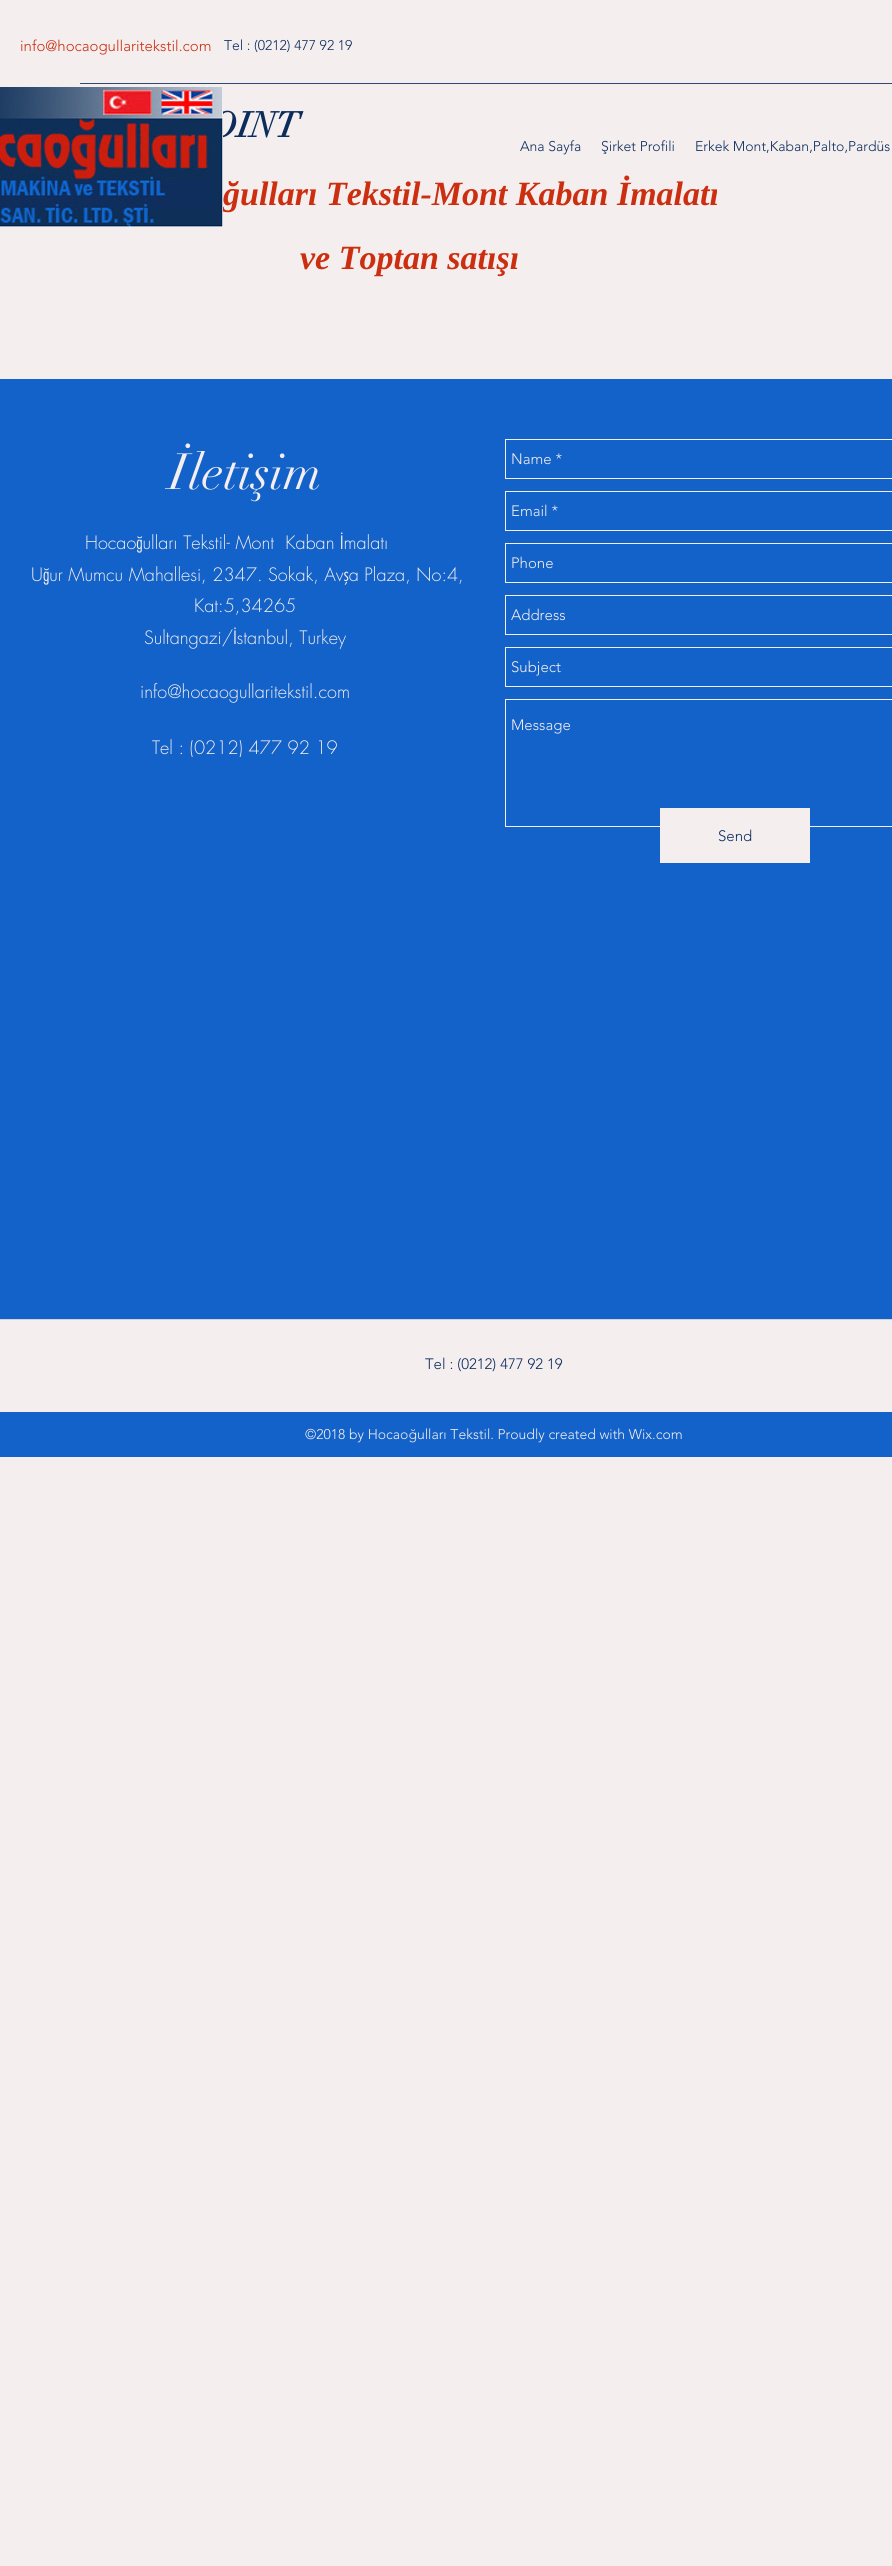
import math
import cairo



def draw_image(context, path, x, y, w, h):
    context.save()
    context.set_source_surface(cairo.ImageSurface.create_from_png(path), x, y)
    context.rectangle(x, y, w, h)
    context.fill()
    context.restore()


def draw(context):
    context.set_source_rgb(244 / 255, 238 / 255, 238 / 255)
    context.paint()
    context.set_source_rgb(47 / 255, 73 / 255, 114 / 255)
    context.rectangle(80, 83, 812, 1)
    context.fill()
    context.set_source_rgb(19 / 255, 98 / 255, 201 / 255)
    context.rectangle(0, 379, 892, 940)
    context.fill()
    context.rectangle(505.5, 439.5, 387, 39)
    context.set_source_rgb(244 / 255, 238 / 255, 238 / 255)
    context.set_line_width(1)
    context.stroke()
    context.rectangle(505.5, 491.5, 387, 39)
    context.stroke()
    context.rectangle(505.5, 543.5, 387, 39)
    context.stroke()
    context.rectangle(505.5, 595.5, 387, 39)
    context.stroke()
    context.rectangle(505.5, 647.5, 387, 39)
    context.stroke()
    context.rectangle(505.5, 699.5, 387, 127)
    context.stroke()
    context.rectangle(660, 808, 150, 55)
    context.fill()
    context.set_source_rgb(209 / 255, 209 / 255, 216 / 255)
    context.rectangle(0, 1319, 892, 1)
    context.fill()
    context.set_source_rgb(19 / 255, 98 / 255, 201 / 255)
    context.rectangle(0, 1412, 892, 45)
    context.fill()
    context.select_font_face("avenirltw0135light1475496 Light")
    context.set_font_size(15)
    context.set_source_rgb(203 / 255, 47 / 255, 16 / 255)
    context.move_to(20, 51)
    context.show_text("info@hocaogullaritekstil.com")
    context.set_font_size(14)
    context.set_source_rgb(12 / 255, 44 / 255, 92 / 255)
    context.move_to(224, 50)
    context.show_text("Tel : (0212) 477 92 19")
    context.select_font_face("didot", cairo.FontSlant.NORMAL, cairo.FontWeight.BOLD)
    context.set_font_size(35)
    context.move_to(210, 137)
    context.show_text("OINT")
    context.select_font_face("avenirltw0135light1475496 Light")
    context.set_font_size(14)
    context.move_to(520, 151)
    context.show_text("Ana Sayfa")
    context.move_to(601, 151)
    context.show_text("Şirket Profili")
    context.move_to(695, 151)
    context.show_text("Erkek Mont,Kaban,Palto,Pardüs")
    context.select_font_face("Liberation Serif", cairo.FontSlant.ITALIC, cairo.FontWeight.BOLD)
    context.set_font_size(34)
    context.set_source_rgb(203 / 255, 47 / 255, 16 / 255)
    context.move_to(223, 205)
    context.show_text("ğulları Tekstil-Mont Kaban İmalatı")
    draw_image(context, "images/1.png", 0, 87, 223, 140)
    context.move_to(300, 269)
    context.show_text("ve Toptan satışı")
    context.select_font_face("didot")
    context.set_font_size(50)
    context.set_source_rgb(244 / 255, 238 / 255, 238 / 255)
    context.move_to(169, 489)
    context.show_text("İletişim")
    context.select_font_face("futura Light")
    context.set_font_size(18)
    context.move_to(85, 549)
    context.show_text("Hocaoğulları Tekstil- Mont  Kaban İmalatı")
    context.move_to(31, 581)
    context.show_text("Uğur Mumcu Mahallesi, 2347. Sokak, Avşa Plaza, No:4,")
    context.move_to(194, 612)
    context.show_text("Kat:5,34265")
    context.move_to(144, 644)
    context.show_text("Sultangazi/İstanbul, Turkey")
    context.move_to(140, 698)
    context.show_text("info@hocaogullaritekstil.com")
    context.move_to(152, 754)
    context.show_text("Tel : (0212) 477 92 19")
    context.select_font_face("avenirltw0135light1475496 Light")
    context.set_font_size(15)
    context.move_to(511, 464)
    context.show_text("Name *")
    context.move_to(511, 516)
    context.show_text("Email *")
    context.move_to(511, 568)
    context.show_text("Phone")
    context.move_to(511, 620)
    context.show_text("Address")
    context.move_to(511, 672)
    context.show_text("Subject")
    context.move_to(511, 730)
    context.show_text("Message")
    context.set_source_rgb(12 / 255, 44 / 255, 92 / 255)
    context.move_to(718, 841)
    context.show_text("Send")
    context.move_to(425, 1369)
    context.show_text("Tel : (0212) 477 92 19")
    context.set_font_size(14)
    context.set_source_rgb(244 / 255, 238 / 255, 238 / 255)
    context.move_to(305, 1439)
    context.show_text("©2018 by Hocaoğulları Tekstil. Proudly created with Wix.com")


surface = cairo.ImageSurface(cairo.Format.RGB24, 892, 2566)
context = cairo.Context(surface)
options = cairo.FontOptions()
options.set_hint_metrics(cairo.HintMetrics.OFF)
options.set_hint_style(cairo.HintStyle.NONE)
context.set_font_options(options)
context.set_miter_limit(4)
draw(context)
surface.write_to_png("out.png")
